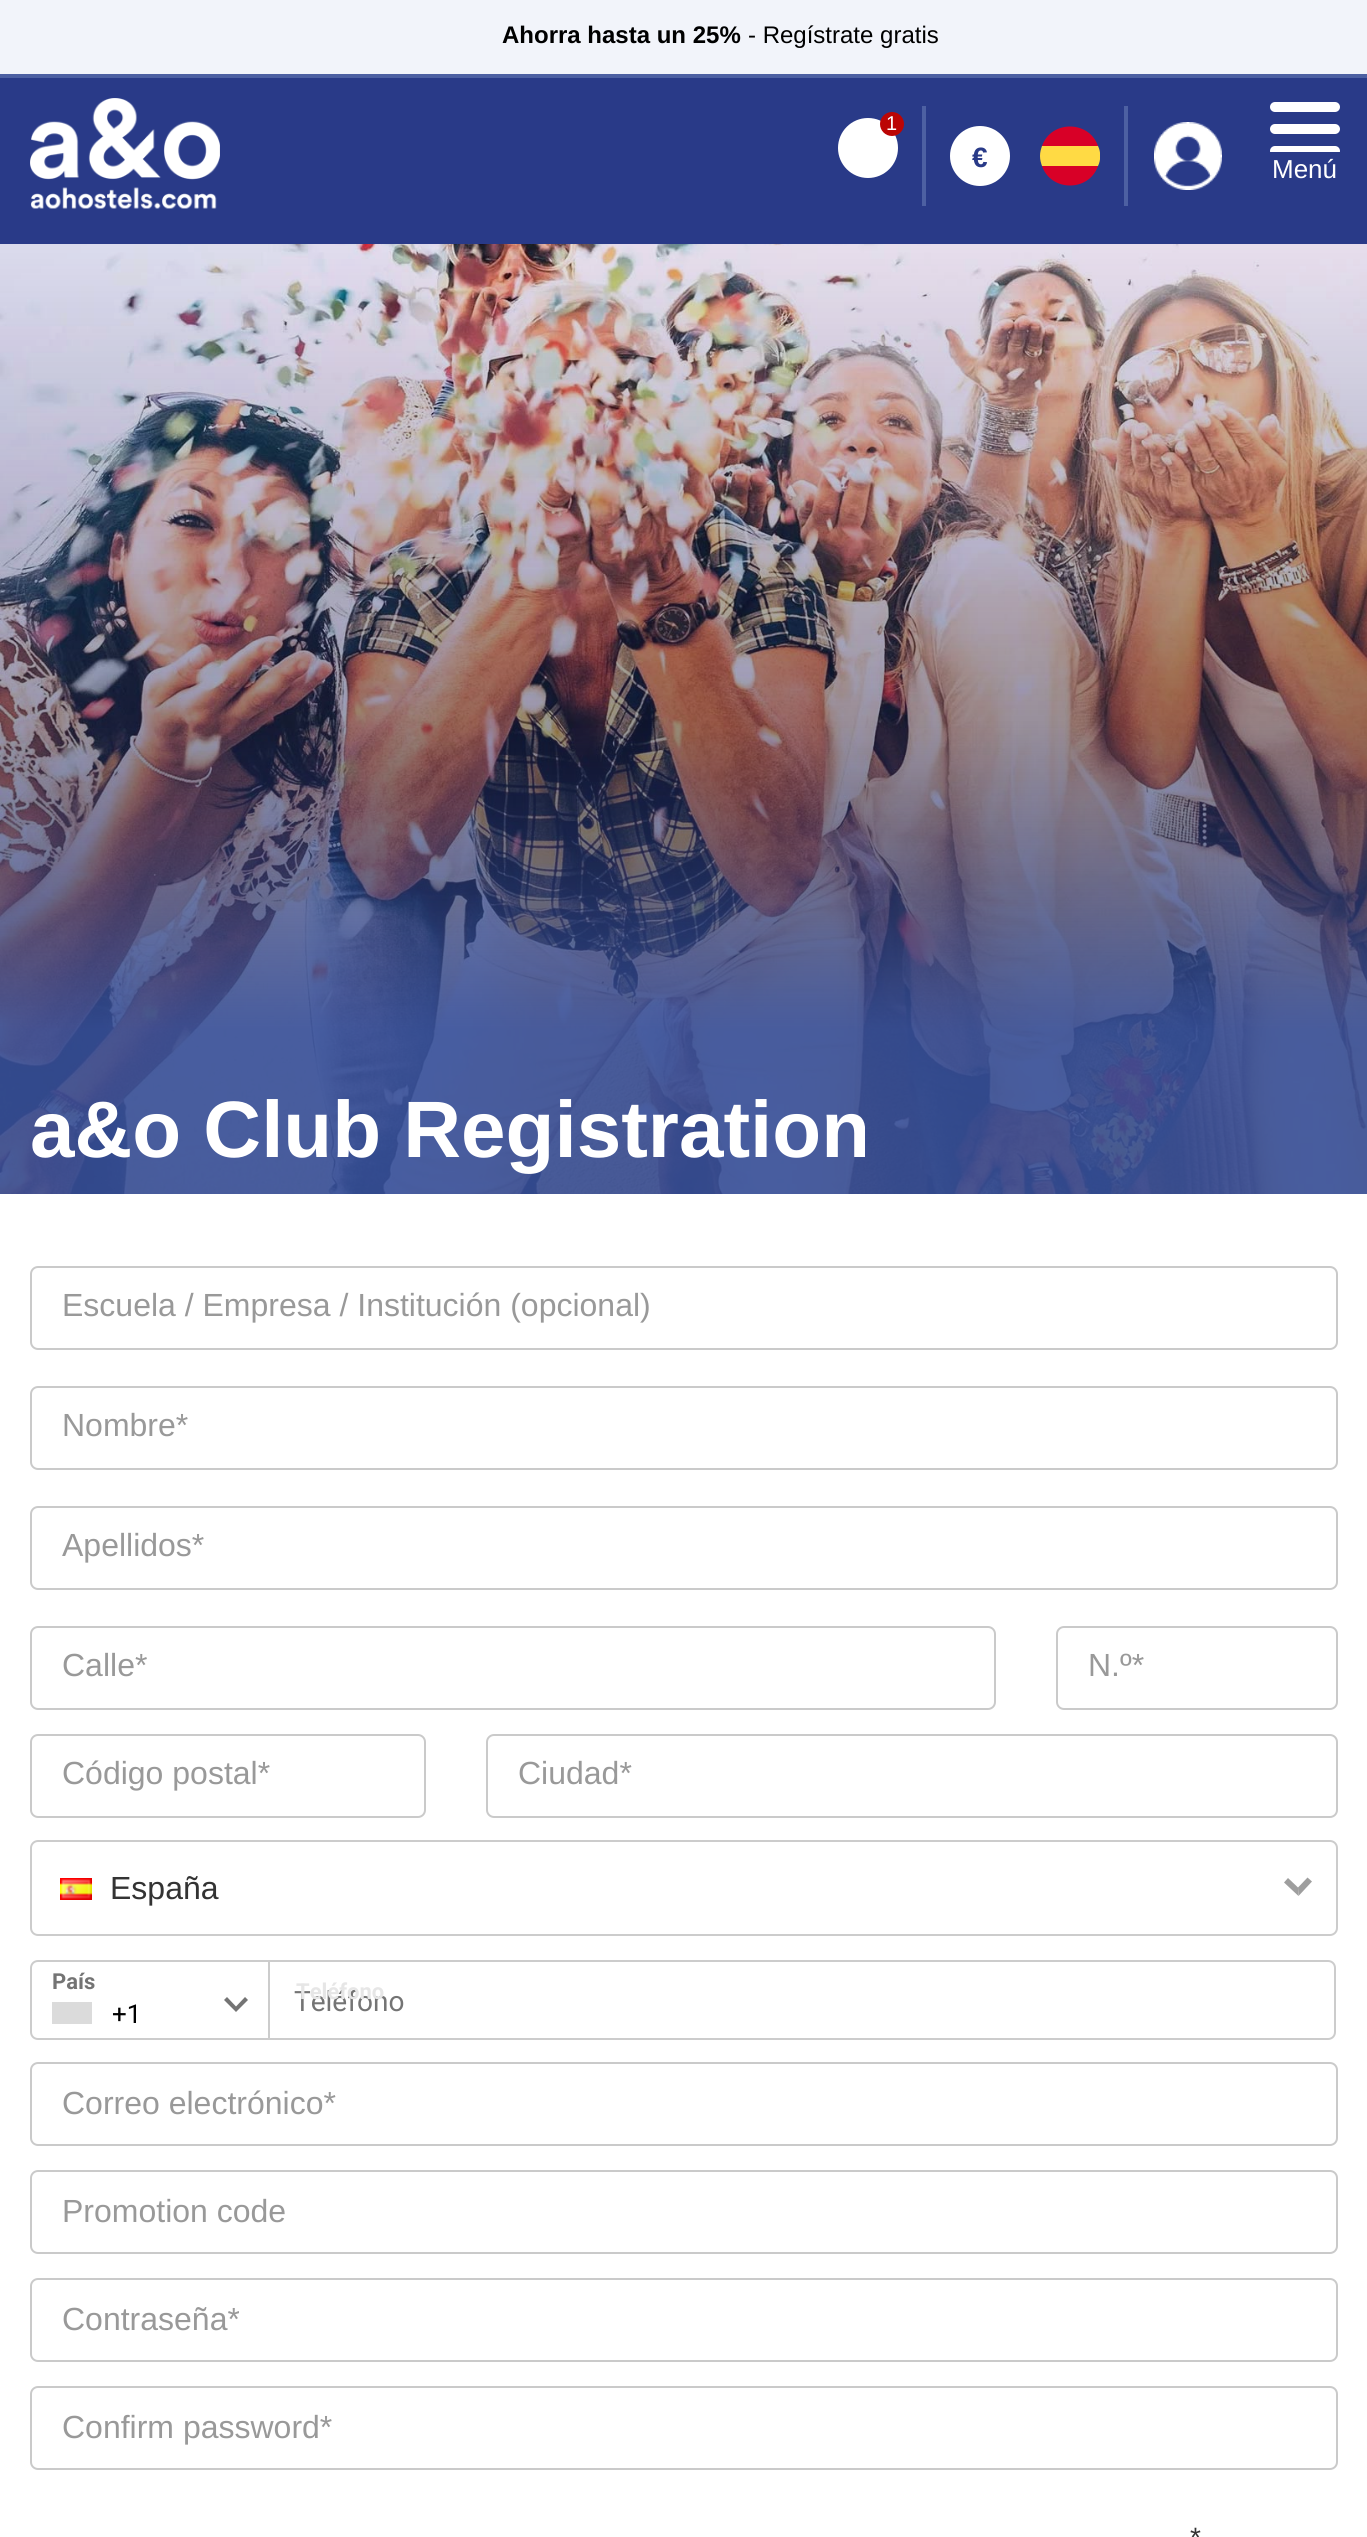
import math
import cairo



def rounded_rect(context, x, y, w, h, r):
    context.new_sub_path()
    for i, (u, v) in enumerate([(x + w - r, y + h - r), (x + r, y + h - r), (x + r, y + r), (x + w - r, y + r)]):
        context.arc(u, v, r, i * math.pi / 2, (i + 1) * math.pi / 2)
    context.close_path()


def draw_image(context, path, x, y, w, h):
    context.save()
    context.set_source_surface(cairo.ImageSurface.create_from_png(path), x, y)
    context.rectangle(x, y, w, h)
    context.fill()
    context.restore()


def draw(context):
    context.set_source_rgb(1, 1, 1)
    context.paint()
    context.set_source_rgb(41 / 255, 58 / 255, 136 / 255)
    context.rectangle(0, 78, 1367, 166)
    context.fill()
    context.set_source_rgb(77 / 255, 96 / 255, 162 / 255)
    context.rectangle(0, 74, 1367, 4)
    context.fill()
    context.set_source_rgb(242 / 255, 244 / 255, 250 / 255)
    context.rectangle(0, 0, 1367, 74)
    context.fill()
    draw_image(context, "images/1.png", 30, 98, 190, 111)
    context.set_source_rgb(77 / 255, 96 / 255, 162 / 255)
    context.rectangle(1124, 106, 4, 100)
    context.fill()
    context.rectangle(922, 106, 4, 100)
    context.fill()
    context.set_source_rgb(1, 1, 1)
    context.arc(980, 156, 30, 0, 2 * math.pi)
    context.fill()
    context.save()
    context.rectangle(1040, 126, 60, 60)
    context.clip()
    context.set_source_rgb(1, 218 / 255, 68 / 255)
    context.new_path()
    context.move_to(1040, 156)
    context.curve_to(1040, 152, 1041, 149, 1042, 146)
    context.line_to(1070, 143)
    context.line_to(1098, 146)
    context.curve_to(1101, 152, 1101, 160, 1098, 166)
    context.line_to(1070, 169)
    context.line_to(1042, 166)
    context.curve_to(1041, 163, 1040, 160, 1040, 156)
    context.close_path()
    context.fill()
    context.restore()
    context.set_source_rgb(216 / 255, 0, 39 / 255)
    context.new_path()
    context.move_to(1098, 146)
    context.curve_to(1089, 120, 1051, 120, 1042, 146)
    context.close_path()
    context.move_to(1042, 166)
    context.curve_to(1051, 192, 1089, 192, 1098, 166)
    context.close_path()
    context.fill()
    draw_image(context, "images/2.png", 1154, 122, 68, 68)
    context.set_source_rgb(1, 1, 1)
    context.arc(868, 148, 30, 0, 2 * math.pi)
    context.fill()
    context.set_source_rgb(187 / 255, 5 / 255, 5 / 255)
    context.arc(892, 124, 12, 0, 2 * math.pi)
    context.fill()
    context.set_source_rgb(1, 1, 1)
    rounded_rect(context, 1270, 102, 70, 10, 5)
    context.fill()
    rounded_rect(context, 1270, 124, 70, 10, 5)
    context.fill()
    rounded_rect(context, 1270, 146, 70, 10, 5)
    context.fill()
    context.set_source_rgb(41 / 255, 58 / 255, 136 / 255)
    context.rectangle(1270, 152, 70, 4)
    context.fill()
    draw_image(context, "images/3.png", 0, 244, 1367, 950)
    rounded_rect(context, 31, 1267, 1306, 82, 7)
    context.set_source_rgb(202 / 255, 202 / 255, 202 / 255)
    context.stroke()
    rounded_rect(context, 31, 1387, 1306, 82, 7)
    context.stroke()
    rounded_rect(context, 31, 1507, 1306, 82, 7)
    context.stroke()
    rounded_rect(context, 31, 1627, 964, 82, 7)
    context.stroke()
    rounded_rect(context, 1057, 1627, 280, 82, 7)
    context.stroke()
    rounded_rect(context, 31, 1735, 394, 82, 7)
    context.stroke()
    rounded_rect(context, 487, 1735, 850, 82, 7)
    context.stroke()
    rounded_rect(context, 31, 1841, 1306, 94, 7)
    context.set_source_rgb(204 / 255, 204 / 255, 204 / 255)
    context.stroke()
    draw_image(context, "images/4.png", 60, 1878, 32, 22)
    context.set_source_rgb(158 / 255, 158 / 255, 158 / 255)
    context.new_path()
    context.move_to(1312, 1881.5)
    context.line_to(1298.5, 1896)
    context.line_to(1298, 1887.5)
    context.line_to(1307.5, 1877.5)
    context.close_path()
    context.fill()
    context.new_path()
    context.move_to(1298.5, 1896)
    context.line_to(1284, 1882.5)
    context.line_to(1288, 1878)
    context.line_to(1298, 1887.5)
    context.close_path()
    context.fill()
    context.new_path()
    context.move_to(38, 1961)
    context.line_to(269, 1961)
    context.line_to(269, 2039)
    context.line_to(38, 2039)
    context.curve_to(34, 2039, 31, 2036, 31, 2032)
    context.line_to(31, 1968)
    context.curve_to(31, 1964, 34, 1961, 38, 1961)
    context.close_path()
    context.set_source_rgb(204 / 255, 204 / 255, 204 / 255)
    context.stroke()
    context.set_source_rgb(219 / 255, 219 / 255, 219 / 255)
    context.rectangle(52, 2002, 40, 22)
    context.fill()
    context.set_source_rgb(116 / 255, 116 / 255, 116 / 255)
    context.new_path()
    context.move_to(227, 1997)
    context.line_to(236, 2006.5)
    context.line_to(245, 1997)
    context.line_to(248, 2000)
    context.line_to(236, 2012)
    context.line_to(224, 2000)
    context.close_path()
    context.fill()
    context.set_source_rgb(1, 1, 1)
    context.new_path()
    context.move_to(269, 1961)
    context.line_to(1328, 1961)
    context.curve_to(1332, 1961, 1335, 1964, 1335, 1968)
    context.line_to(1335, 2032)
    context.curve_to(1335, 2036, 1332, 2039, 1328, 2039)
    context.line_to(269, 2039)
    context.close_path()
    context.fill_preserve()
    context.set_source_rgb(204 / 255, 204 / 255, 204 / 255)
    context.stroke()
    rounded_rect(context, 31, 2063, 1306, 82, 7)
    context.set_source_rgb(202 / 255, 202 / 255, 202 / 255)
    context.stroke()
    rounded_rect(context, 31, 2171, 1306, 82, 7)
    context.stroke()
    rounded_rect(context, 31, 2279, 1306, 82, 7)
    context.stroke()
    rounded_rect(context, 31, 2387, 1306, 82, 7)
    context.stroke()
    context.select_font_face("Liberation Sans", cairo.FontSlant.NORMAL, cairo.FontWeight.BOLD)
    context.set_font_size(24)
    context.set_source_rgb(0, 0, 0)
    context.move_to(502, 43)
    context.show_text("Ahorra hasta un 25%")
    context.select_font_face("Liberation Sans")
    context.move_to(748, 43)
    context.show_text("- Regístrate gratis")
    context.select_font_face("Liberation Sans", cairo.FontSlant.NORMAL, cairo.FontWeight.BOLD)
    context.set_font_size(28)
    context.set_source_rgb(41 / 255, 58 / 255, 136 / 255)
    context.move_to(972, 167)
    context.show_text("€")
    context.select_font_face("Liberation Sans")
    context.set_font_size(20)
    context.set_source_rgb(1, 1, 1)
    context.move_to(886, 130)
    context.show_text("1")
    context.set_font_size(26)
    context.move_to(1272, 178)
    context.show_text("Menú")
    context.select_font_face("Liberation Sans", cairo.FontSlant.NORMAL, cairo.FontWeight.BOLD)
    context.set_font_size(80)
    context.move_to(30, 1157)
    context.show_text("a&o Club Registration")
    context.select_font_face("Liberation Sans")
    context.set_font_size(32)
    context.set_source_rgb(153 / 255, 153 / 255, 153 / 255)
    context.move_to(62, 1316)
    context.show_text("Escuela / Empresa / Institución (opcional)")
    context.move_to(62, 1436)
    context.show_text("Nombre*")
    context.move_to(62, 1556)
    context.show_text("Apellidos*")
    context.move_to(62, 1676)
    context.show_text("Calle*")
    context.move_to(1088, 1676)
    context.show_text("N.º*")
    context.move_to(62, 1784)
    context.show_text("Código postal*")
    context.move_to(518, 1784)
    context.show_text("Ciudad*")
    context.set_source_rgb(51 / 255, 51 / 255, 51 / 255)
    context.move_to(110, 1899)
    context.show_text("España")
    context.select_font_face("Roboto", cairo.FontSlant.NORMAL, cairo.FontWeight.BOLD)
    context.set_font_size(22)
    context.set_source_rgb(116 / 255, 116 / 255, 116 / 255)
    context.move_to(52, 1989)
    context.show_text("País")
    context.select_font_face("Roboto")
    context.set_font_size(26)
    context.set_source_rgb(0, 0, 0)
    context.move_to(112, 2023)
    context.show_text("+1")
    context.set_font_size(28)
    context.set_source_rgb(116 / 255, 116 / 255, 116 / 255)
    context.move_to(294, 2011)
    context.show_text("Teléfono")
    context.select_font_face("Roboto", cairo.FontSlant.NORMAL, cairo.FontWeight.BOLD)
    context.set_font_size(22)
    context.set_source_rgb(230 / 255, 230 / 255, 230 / 255)
    context.move_to(296, 1999)
    context.show_text("Teléfono")
    context.select_font_face("Liberation Sans")
    context.set_font_size(32)
    context.set_source_rgb(153 / 255, 153 / 255, 153 / 255)
    context.move_to(62, 2114)
    context.show_text("Correo electrónico*")
    context.move_to(62, 2222)
    context.show_text("Promotion code")
    context.move_to(62, 2330)
    context.show_text("Contraseña*")
    context.move_to(62, 2438)
    context.show_text("Confirm password*")
    context.set_font_size(28)
    context.set_source_rgb(51 / 255, 51 / 255, 51 / 255)
    context.move_to(1190, 2547)
    context.show_text("*")


surface = cairo.ImageSurface(cairo.Format.RGB24, 1367, 2537)
context = cairo.Context(surface)
options = cairo.FontOptions()
options.set_hint_metrics(cairo.HintMetrics.OFF)
options.set_hint_style(cairo.HintStyle.NONE)
context.set_font_options(options)
context.set_miter_limit(4)
draw(context)
surface.write_to_png("out.png")
